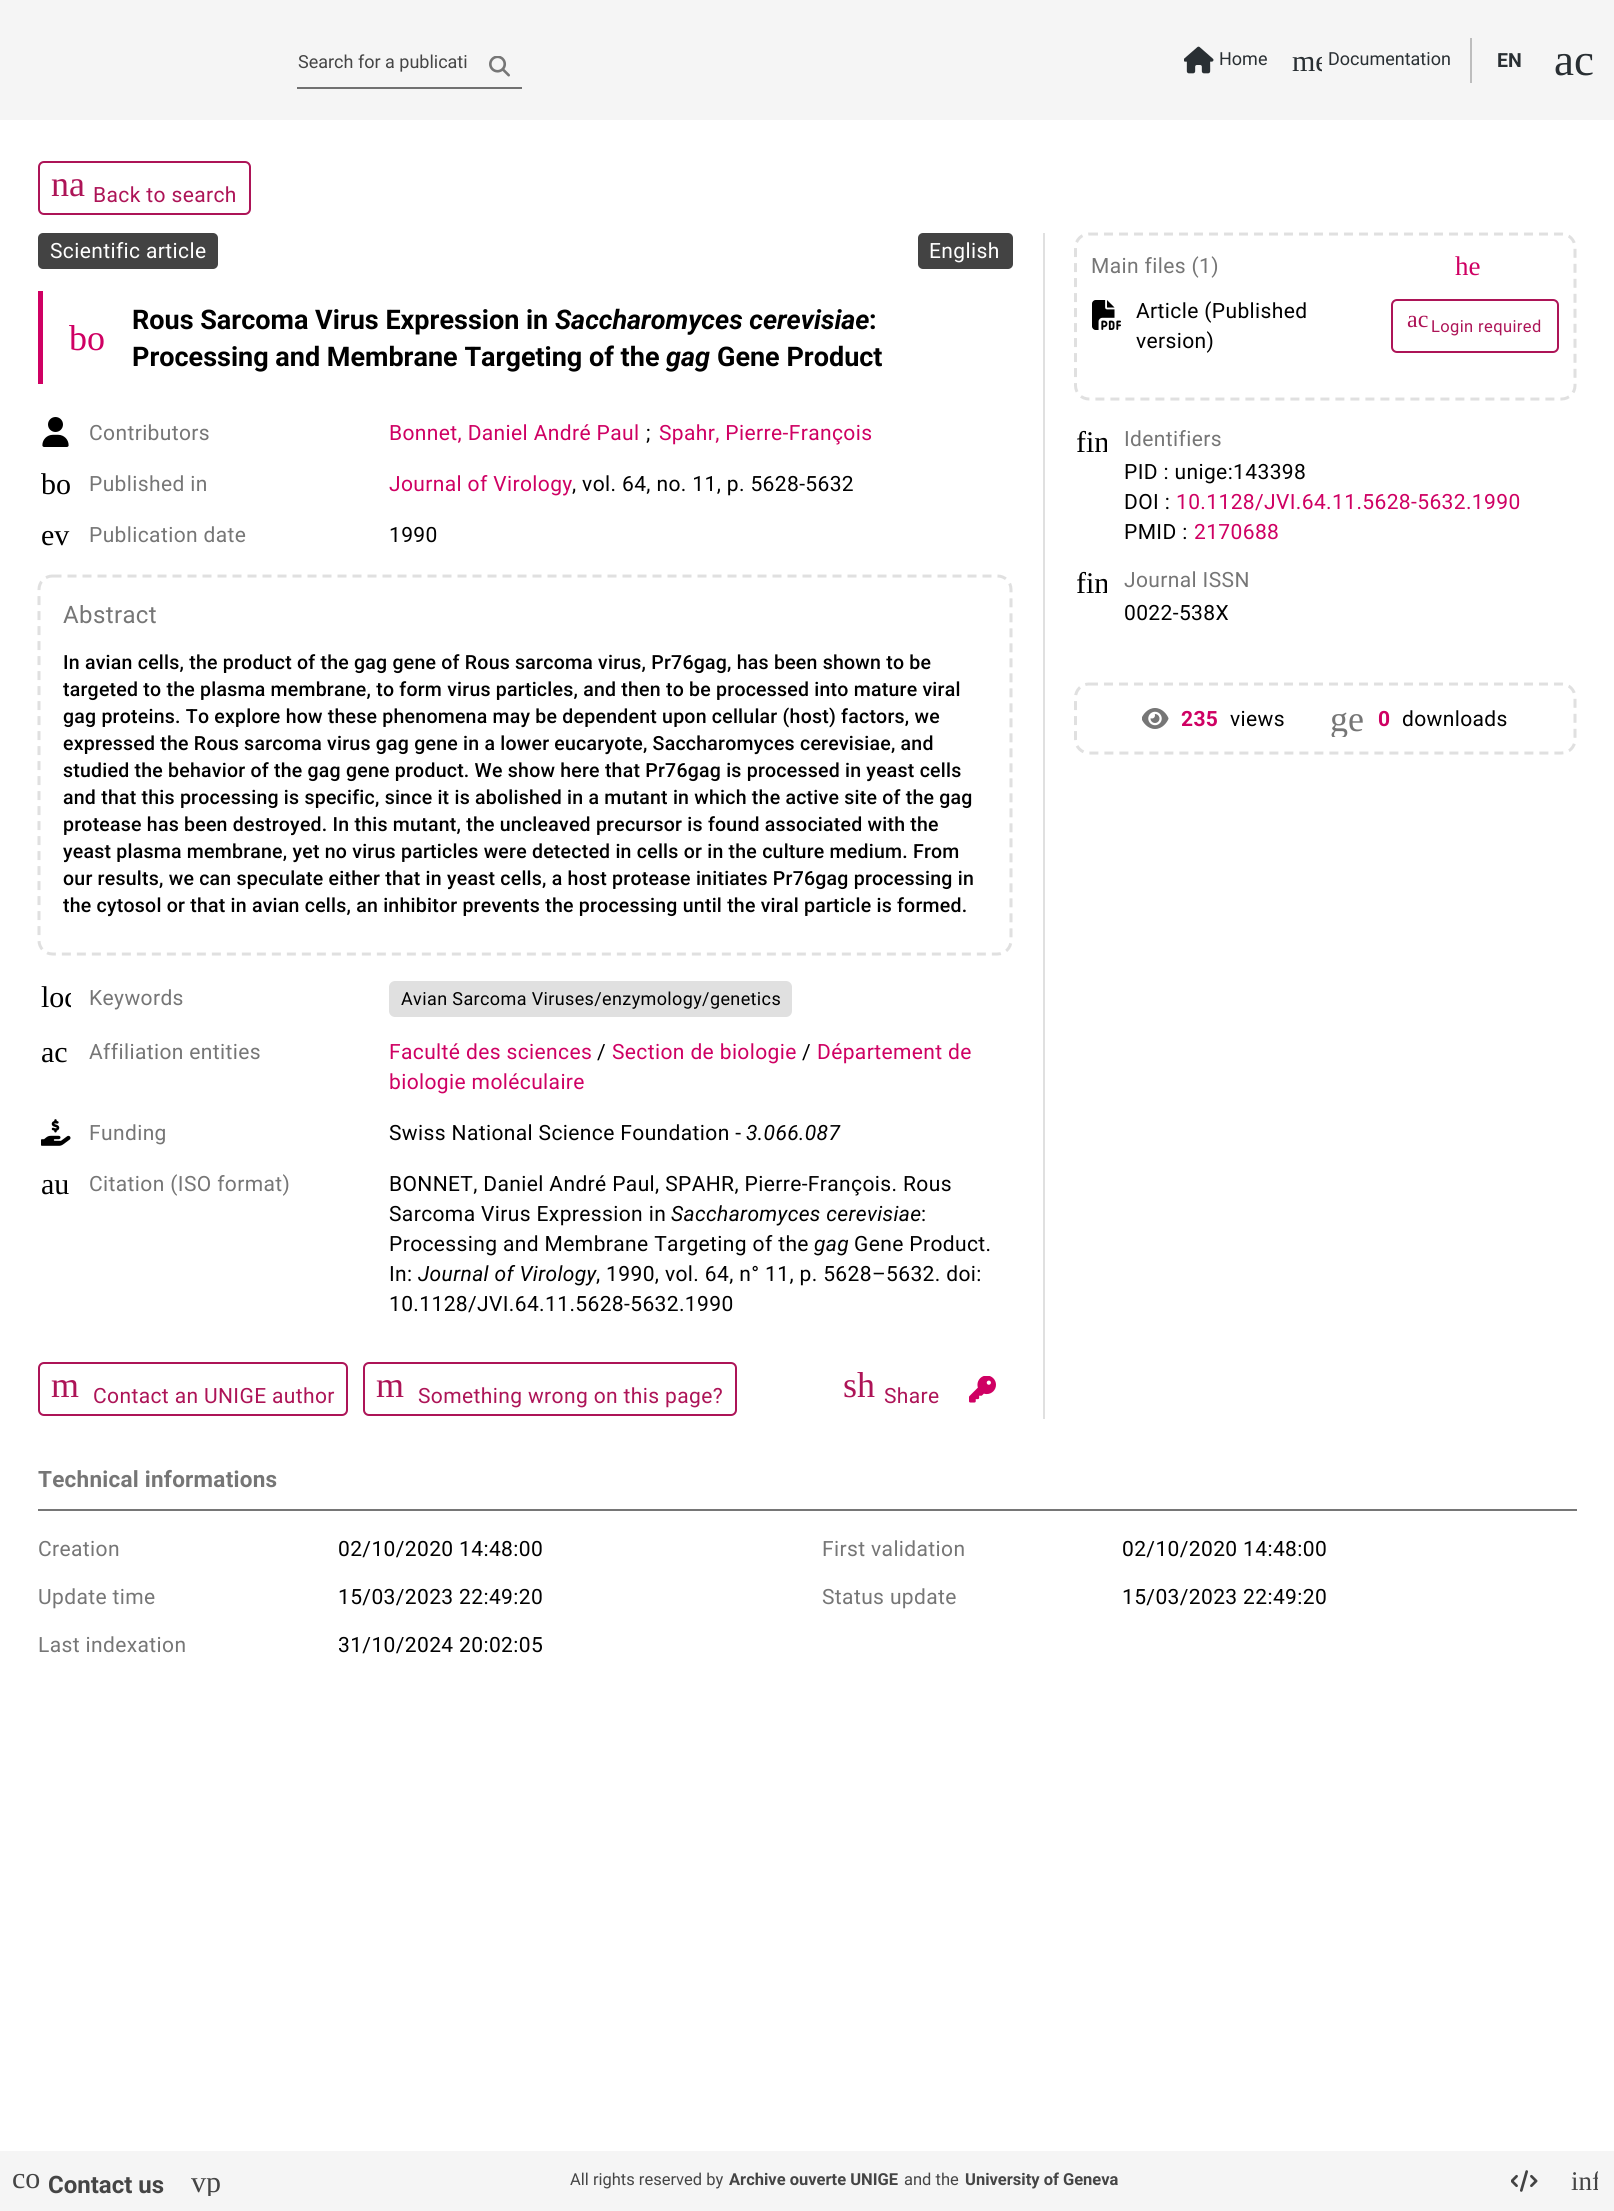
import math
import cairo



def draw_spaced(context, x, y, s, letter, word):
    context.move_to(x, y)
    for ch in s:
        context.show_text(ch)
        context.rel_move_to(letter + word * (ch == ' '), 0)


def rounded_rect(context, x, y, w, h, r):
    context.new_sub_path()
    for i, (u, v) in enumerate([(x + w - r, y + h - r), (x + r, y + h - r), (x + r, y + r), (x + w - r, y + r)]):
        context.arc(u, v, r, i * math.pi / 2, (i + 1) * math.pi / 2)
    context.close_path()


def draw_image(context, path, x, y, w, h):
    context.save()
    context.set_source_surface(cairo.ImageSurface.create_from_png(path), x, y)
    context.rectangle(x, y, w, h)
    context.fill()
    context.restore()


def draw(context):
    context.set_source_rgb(1, 1, 1)
    context.paint()
    context.set_source_rgb(245 / 255, 245 / 255, 245 / 255)
    context.rectangle(0, 0, 1614, 120)
    context.fill()
    draw_image(context, "images/1.png", 489, 56, 21, 21)
    context.set_source_rgb(113 / 255, 113 / 255, 113 / 255)
    context.rectangle(297, 87, 225, 2)
    context.fill()
    draw_image(context, "images/2.png", 1184, 46, 30, 28)
    context.set_source_rgb(189 / 255, 189 / 255, 189 / 255)
    context.rectangle(1470, 38, 2, 45)
    context.fill()
    rounded_rect(context, 39, 162, 211, 52, 5)
    context.set_source_rgb(173 / 255, 20 / 255, 87 / 255)
    context.stroke()
    context.set_source_rgb(224 / 255, 224 / 255, 224 / 255)
    context.rectangle(1043, 233, 2, 1186)
    context.fill()
    context.set_source_rgb(67 / 255, 67 / 255, 67 / 255)
    rounded_rect(context, 38, 233, 180, 36, 5)
    context.fill()
    rounded_rect(context, 918, 233, 95, 36, 5)
    context.fill()
    context.set_source_rgb(207 / 255, 0, 99 / 255)
    context.rectangle(38, 291, 5, 93)
    context.fill()
    draw_image(context, "images/3.png", 42, 417, 27, 30)
    context.new_path()
    context.move_to(52.5, 576)
    context.line_to(997.5, 576)
    context.curve_to(1005, 576, 1011, 582, 1011, 589.5)
    context.line_to(1011, 940.5)
    context.curve_to(1011, 948, 1005, 954, 997.5, 954)
    context.line_to(52.5, 954)
    context.curve_to(45, 954, 39, 948, 39, 940.5)
    context.line_to(39, 589.5)
    context.curve_to(39, 582, 45, 576, 52.5, 576)
    context.close_path()
    context.set_source_rgb(224 / 255, 224 / 255, 224 / 255)
    context.set_line_width(3)
    context.set_dash([9, 6])
    context.stroke()
    rounded_rect(context, 389, 981, 403, 36, 6)
    context.fill()
    draw_image(context, "images/4.png", 41, 1119, 30, 27)
    rounded_rect(context, 39, 1363, 308, 52, 5)
    context.set_source_rgb(173 / 255, 20 / 255, 87 / 255)
    context.set_line_width(2)
    context.set_dash([])
    context.stroke()
    rounded_rect(context, 364, 1363, 372, 52, 5)
    context.stroke()
    draw_image(context, "images/5.png", 969, 1376, 27, 27)
    context.new_path()
    context.move_to(1089, 234)
    context.line_to(1561.5, 234)
    context.curve_to(1569, 234, 1575, 240, 1575, 247.5)
    context.line_to(1575, 385.5)
    context.curve_to(1575, 393, 1569, 399, 1561.5, 399)
    context.line_to(1089, 399)
    context.curve_to(1081.5, 399, 1075.5, 393, 1075.5, 385.5)
    context.line_to(1075.5, 247.5)
    context.curve_to(1075.5, 240, 1081.5, 234, 1089, 234)
    context.close_path()
    context.set_source_rgb(224 / 255, 224 / 255, 224 / 255)
    context.set_line_width(3)
    context.set_dash([9, 6])
    context.stroke()
    draw_image(context, "images/6.png", 1092, 300, 29, 30)
    rounded_rect(context, 1392, 300, 166, 52, 5)
    context.set_source_rgb(173 / 255, 20 / 255, 87 / 255)
    context.set_line_width(2)
    context.set_dash([])
    context.stroke()
    context.new_path()
    context.move_to(1089, 684)
    context.line_to(1561.5, 684)
    context.curve_to(1569, 684, 1575, 690, 1575, 697.5)
    context.line_to(1575, 739.5)
    context.curve_to(1575, 747, 1569, 753, 1561.5, 753)
    context.line_to(1089, 753)
    context.curve_to(1081.5, 753, 1075.5, 747, 1075.5, 739.5)
    context.line_to(1075.5, 697.5)
    context.curve_to(1075.5, 690, 1081.5, 684, 1089, 684)
    context.close_path()
    context.set_source_rgb(224 / 255, 224 / 255, 224 / 255)
    context.set_line_width(3)
    context.set_dash([9, 6])
    context.stroke()
    draw_image(context, "images/7.png", 1142, 708, 27, 21)
    context.set_source_rgb(118 / 255, 118 / 255, 118 / 255)
    context.rectangle(38, 1509, 1539, 2)
    context.fill()
    context.set_source_rgb(245 / 255, 245 / 255, 245 / 255)
    context.rectangle(0, 2151, 1614, 60)
    context.fill()
    draw_image(context, "images/8.png", 1511, 2170, 27, 22)
    context.select_font_face("Roboto")
    context.set_font_size(18)
    context.set_source_rgb(69 / 255, 69 / 255, 69 / 255)
    context.move_to(298, 68)
    context.show_text("Search for a publicati")
    context.set_source_rgb(41 / 255, 47 / 255, 51 / 255)
    context.move_to(1219, 65)
    context.show_text("Home")
    context.save()
    context.rectangle(1292, 45, 30, 30)
    context.clip()
    context.select_font_face("Liberation Serif")
    context.set_font_size(30)
    context.move_to(1292, 71)
    context.show_text("me")
    context.restore()
    context.move_to(1328, 65)
    context.show_text("Documentation")
    context.select_font_face("Roboto", cairo.FontSlant.NORMAL, cairo.FontWeight.BOLD)
    context.set_font_size(19.5)
    context.move_to(1497, 67)
    context.show_text("EN")
    context.select_font_face("Liberation Serif")
    context.set_font_size(45)
    context.move_to(1554, 75)
    context.show_text("ac")
    context.set_font_size(36)
    context.set_source_rgb(173 / 255, 20 / 255, 87 / 255)
    context.move_to(51, 196)
    context.show_text("na")
    context.select_font_face("Roboto")
    context.set_font_size(21)
    draw_spaced(context, 93, 202, "Back to search", 0.38, 0)
    context.set_source_rgb(1, 1, 1)
    draw_spaced(context, 50, 258, "Scientific article", 0.38, 0)
    draw_spaced(context, 929, 258, "English", 0.38, 0)
    context.select_font_face("Liberation Serif")
    context.set_font_size(36)
    context.set_source_rgb(207 / 255, 0, 99 / 255)
    context.move_to(69, 350)
    context.show_text("bo")
    context.select_font_face("Roboto", cairo.FontSlant.NORMAL, cairo.FontWeight.BOLD)
    context.set_font_size(27)
    context.set_source_rgb(0, 0, 0)
    context.move_to(132, 329)
    context.show_text("Rous Sarcoma Virus Expression in")
    context.select_font_face("Roboto", cairo.FontSlant.ITALIC, cairo.FontWeight.BOLD)
    context.move_to(555, 329)
    context.show_text("Saccharomyces cerevisiae")
    context.select_font_face("Roboto", cairo.FontSlant.NORMAL, cairo.FontWeight.BOLD)
    context.move_to(869, 329)
    context.show_text(":")
    context.move_to(132, 366)
    context.show_text("Processing and Membrane Targeting of the")
    context.select_font_face("Roboto", cairo.FontSlant.ITALIC, cairo.FontWeight.BOLD)
    context.move_to(666, 366)
    context.show_text("gag")
    context.select_font_face("Roboto", cairo.FontSlant.NORMAL, cairo.FontWeight.BOLD)
    context.move_to(717, 366)
    context.show_text("Gene Product")
    context.select_font_face("Roboto")
    context.set_font_size(21)
    context.set_source_rgb(118 / 255, 118 / 255, 118 / 255)
    draw_spaced(context, 89, 440, "Contributors", 0.38, 0)
    context.set_source_rgb(207 / 255, 0, 99 / 255)
    draw_spaced(context, 389, 440, "Bonnet, Daniel André Paul", 0.38, 0)
    context.set_source_rgb(0, 0, 0)
    draw_spaced(context, 646, 440, ";", 0.38, 0)
    context.set_source_rgb(207 / 255, 0, 99 / 255)
    draw_spaced(context, 659, 440, "Spahr, Pierre-François", 0.38, 0)
    context.select_font_face("Liberation Serif")
    context.set_font_size(30)
    context.set_source_rgb(0, 0, 0)
    context.move_to(41, 494)
    context.show_text("bo")
    context.select_font_face("Roboto")
    context.set_font_size(21)
    context.set_source_rgb(118 / 255, 118 / 255, 118 / 255)
    draw_spaced(context, 89, 491, "Published in", 0.38, 0)
    context.set_source_rgb(207 / 255, 0, 99 / 255)
    draw_spaced(context, 389, 491, "Journal of Virology", 0.38, 0)
    context.set_source_rgb(0, 0, 0)
    draw_spaced(context, 572, 491, ", vol. 64, no. 11, p. 5628-5632", 0.38, 0)
    context.select_font_face("Liberation Serif")
    context.set_font_size(30)
    context.move_to(41, 545)
    context.show_text("ev")
    context.select_font_face("Roboto")
    context.set_font_size(21)
    context.set_source_rgb(118 / 255, 118 / 255, 118 / 255)
    draw_spaced(context, 89, 542, "Publication date", 0.38, 0)
    context.set_source_rgb(0, 0, 0)
    draw_spaced(context, 389, 542, "1990", 0.38, 0)
    context.set_font_size(24)
    context.set_source_rgb(118 / 255, 118 / 255, 118 / 255)
    draw_spaced(context, 63, 623, "Abstract", 0.38, 0)
    context.select_font_face("Roboto Medium")
    context.set_font_size(19.5)
    context.set_source_rgb(0, 0, 0)
    draw_spaced(context, 63, 669, "In avian cells, the product of the gag gene of Rous sarcoma virus, Pr76gag, has been shown to be", 0.24, 0)
    draw_spaced(context, 63, 696, "targeted to the plasma membrane, to form virus particles, and then to be processed into mature viral", 0.24, 0)
    draw_spaced(context, 63, 723, "gag proteins. To explore how these phenomena may be dependent upon cellular (host) factors, we", 0.24, 0)
    draw_spaced(context, 63, 750, "expressed the Rous sarcoma virus gag gene in a lower eucaryote, Saccharomyces cerevisiae, and", 0.24, 0)
    draw_spaced(context, 63, 777, "studied the behavior of the gag gene product. We show here that Pr76gag is processed in yeast cells", 0.24, 0)
    draw_spaced(context, 63, 804, "and that this processing is specific, since it is abolished in a mutant in which the active site of the gag", 0.24, 0)
    draw_spaced(context, 63, 831, "protease has been destroyed. In this mutant, the uncleaved precursor is found associated with the", 0.24, 0)
    draw_spaced(context, 63, 858, "yeast plasma membrane, yet no virus particles were detected in cells or in the culture medium. From", 0.24, 0)
    draw_spaced(context, 63, 885, "our results, we can speculate either that in yeast cells, a host protease initiates Pr76gag processing in", 0.24, 0)
    draw_spaced(context, 63, 912, "the cytosol or that in avian cells, an inhibitor prevents the processing until the viral particle is formed.", 0.24, 0)
    context.save()
    context.rectangle(41, 981, 30, 30)
    context.clip()
    context.select_font_face("Liberation Serif")
    context.set_font_size(30)
    context.move_to(41, 1007)
    context.show_text("loc")
    context.restore()
    context.select_font_face("Roboto")
    context.set_font_size(21)
    context.set_source_rgb(118 / 255, 118 / 255, 118 / 255)
    draw_spaced(context, 89, 1005, "Keywords", 0.38, 0)
    context.set_font_size(18)
    context.set_source_rgb(0, 0, 0)
    draw_spaced(context, 401, 1005, "Avian Sarcoma Viruses/enzymology/genetics", 0.38, 0)
    context.select_font_face("Liberation Serif")
    context.set_font_size(30)
    context.move_to(41, 1062)
    context.show_text("ac")
    context.select_font_face("Roboto")
    context.set_font_size(21)
    context.set_source_rgb(118 / 255, 118 / 255, 118 / 255)
    draw_spaced(context, 89, 1059, "Affiliation entities", 0.38, 0)
    context.set_source_rgb(207 / 255, 0, 99 / 255)
    draw_spaced(context, 389, 1059, "Faculté des sciences", 0.38, 0)
    context.set_source_rgb(0, 0, 0)
    draw_spaced(context, 597, 1059, "/", 0.38, 0)
    context.set_source_rgb(207 / 255, 0, 99 / 255)
    draw_spaced(context, 612, 1059, "Section de biologie", 0.38, 0)
    context.set_source_rgb(0, 0, 0)
    draw_spaced(context, 802, 1059, "/", 0.38, 0)
    context.set_source_rgb(207 / 255, 0, 99 / 255)
    draw_spaced(context, 817, 1059, "Département de", 0.38, 0)
    draw_spaced(context, 389, 1089, "biologie moléculaire", 0.38, 0)
    context.set_source_rgb(118 / 255, 118 / 255, 118 / 255)
    draw_spaced(context, 89, 1140, "Funding", 0.38, 0)
    context.set_source_rgb(0, 0, 0)
    draw_spaced(context, 389, 1140, "Swiss National Science Foundation -", 0.38, 0)
    context.select_font_face("Roboto", cairo.FontSlant.ITALIC)
    draw_spaced(context, 746, 1140, "3.066.087", 0.38, 0)
    context.select_font_face("Liberation Serif")
    context.set_font_size(30)
    context.move_to(41, 1194)
    context.show_text("au")
    context.select_font_face("Roboto")
    context.set_font_size(21)
    context.set_source_rgb(118 / 255, 118 / 255, 118 / 255)
    draw_spaced(context, 89, 1191, "Citation (ISO format)", 0.38, 0)
    context.set_source_rgb(0, 0, 0)
    draw_spaced(context, 389, 1191, "BONNET, Daniel André Paul, SPAHR, Pierre-François. Rous", 0.38, 0)
    draw_spaced(context, 389, 1221, "Sarcoma Virus Expression in", 0.38, 0)
    context.select_font_face("Roboto", cairo.FontSlant.ITALIC)
    draw_spaced(context, 671, 1221, "Saccharomyces cerevisiae", 0.38, 0)
    context.select_font_face("Roboto")
    draw_spaced(context, 921, 1221, ":", 0.38, 0)
    draw_spaced(context, 389, 1251, "Processing and Membrane Targeting of the", 0.38, 0)
    context.select_font_face("Roboto", cairo.FontSlant.ITALIC)
    draw_spaced(context, 814, 1251, "gag", 0.38, 0)
    context.select_font_face("Roboto")
    draw_spaced(context, 854, 1251, "Gene Product.", 0.38, 0)
    draw_spaced(context, 389, 1281, "In:", 0.38, 0)
    context.select_font_face("Roboto", cairo.FontSlant.ITALIC)
    draw_spaced(context, 418, 1281, "Journal of Virology", 0.38, 0)
    context.select_font_face("Roboto")
    draw_spaced(context, 596, 1281, ", 1990, vol. 64, n° 11, p. 5628–5632. doi:", 0.38, 0)
    draw_spaced(context, 389, 1311, "10.1128/JVI.64.11.5628-5632.1990", 0.38, 0)
    context.select_font_face("Liberation Serif")
    context.set_font_size(36)
    context.set_source_rgb(173 / 255, 20 / 255, 87 / 255)
    context.move_to(51, 1397)
    context.show_text("m")
    context.select_font_face("Roboto")
    context.set_font_size(21)
    draw_spaced(context, 93, 1403, "Contact an UNIGE author", 0.38, 0)
    context.select_font_face("Liberation Serif")
    context.set_font_size(36)
    context.move_to(376, 1397)
    context.show_text("m")
    context.select_font_face("Roboto")
    context.set_font_size(21)
    draw_spaced(context, 418, 1403, "Something wrong on this page?", 0.38, 0)
    context.select_font_face("Liberation Serif")
    context.set_font_size(36)
    context.move_to(843, 1397)
    context.show_text("sh")
    context.select_font_face("Roboto")
    context.set_font_size(21)
    draw_spaced(context, 884, 1403, "Share", 0.38, 0)
    context.set_source_rgb(118 / 255, 118 / 255, 118 / 255)
    draw_spaced(context, 1091, 273, "Main files (1)", 0.38, 0)
    context.select_font_face("Liberation Serif")
    context.set_font_size(27)
    context.set_source_rgb(207 / 255, 0, 99 / 255)
    context.move_to(1455, 275)
    context.show_text("he")
    context.select_font_face("Roboto")
    context.set_font_size(21)
    context.set_source_rgb(0, 0, 0)
    draw_spaced(context, 1136, 318, "Article (Published", 0.38, 0)
    draw_spaced(context, 1136, 348, "version)", 0.38, 0)
    context.select_font_face("Liberation Serif")
    context.set_font_size(24)
    context.set_source_rgb(173 / 255, 20 / 255, 87 / 255)
    context.move_to(1407, 327)
    context.show_text("ac")
    context.select_font_face("Roboto")
    context.set_font_size(16.5)
    draw_spaced(context, 1431, 332, "Login required", 0.38, 0)
    context.save()
    context.rectangle(1077, 426, 30, 30)
    context.clip()
    context.select_font_face("Liberation Serif")
    context.set_font_size(30)
    context.set_source_rgb(0, 0, 0)
    context.move_to(1076, 452)
    context.show_text("fin")
    context.restore()
    context.set_font_size(21)
    context.set_source_rgb(118 / 255, 118 / 255, 118 / 255)
    draw_spaced(context, 1124, 446, "Identifiers", 0.38, 0)
    context.set_source_rgb(0, 0, 0)
    draw_spaced(context, 1124, 479, "PID : unige:143398", 0.38, 0)
    draw_spaced(context, 1124, 509, "DOI :", 0.38, 0)
    context.set_source_rgb(207 / 255, 0, 99 / 255)
    draw_spaced(context, 1176, 509, "10.1128/JVI.64.11.5628-5632.1990", 0.38, 0)
    context.set_source_rgb(0, 0, 0)
    draw_spaced(context, 1124, 539, "PMID :", 0.38, 0)
    context.set_source_rgb(207 / 255, 0, 99 / 255)
    draw_spaced(context, 1194, 539, "2170688", 0.38, 0)
    context.save()
    context.rectangle(1077, 567, 30, 30)
    context.clip()
    context.select_font_face("Liberation Serif")
    context.set_font_size(30)
    context.set_source_rgb(0, 0, 0)
    context.move_to(1076, 593)
    context.show_text("fin")
    context.restore()
    context.set_source_rgb(118 / 255, 118 / 255, 118 / 255)
    draw_spaced(context, 1124, 587, "Journal ISSN", 0.38, 0)
    context.set_source_rgb(0, 0, 0)
    draw_spaced(context, 1124, 620, "0022-538X", 0.38, 0)
    context.select_font_face("Roboto", cairo.FontSlant.NORMAL, cairo.FontWeight.BOLD)
    context.set_source_rgb(207 / 255, 0, 99 / 255)
    draw_spaced(context, 1181, 726, "235", 0.38, 0)
    context.select_font_face("Roboto")
    context.set_source_rgb(0, 0, 0)
    draw_spaced(context, 1230, 726, "views", 0.38, 0)
    context.save()
    context.rectangle(1331, 701, 36, 36)
    context.clip()
    context.select_font_face("Liberation Serif")
    context.set_font_size(36)
    context.set_source_rgb(118 / 255, 118 / 255, 118 / 255)
    context.move_to(1330, 731)
    context.show_text("ge")
    context.restore()
    context.select_font_face("Roboto", cairo.FontSlant.NORMAL, cairo.FontWeight.BOLD)
    context.set_source_rgb(207 / 255, 0, 99 / 255)
    draw_spaced(context, 1378, 726, "0", 0.38, 0)
    context.select_font_face("Roboto")
    context.set_source_rgb(0, 0, 0)
    draw_spaced(context, 1402, 726, "downloads", 0.38, 0)
    context.select_font_face("Roboto", cairo.FontSlant.NORMAL, cairo.FontWeight.BOLD)
    context.set_font_size(22.5)
    context.set_source_rgb(118 / 255, 118 / 255, 118 / 255)
    draw_spaced(context, 38, 1487, "Technical informations", 0.25, 0)
    context.select_font_face("Roboto")
    context.set_font_size(21)
    draw_spaced(context, 38, 1556, "Creation", 0.38, 0)
    context.set_source_rgb(0, 0, 0)
    draw_spaced(context, 338, 1556, "02/10/2020 14:48:00", 0.38, 0)
    context.set_source_rgb(118 / 255, 118 / 255, 118 / 255)
    draw_spaced(context, 822, 1556, "First validation", 0.38, 0)
    context.set_source_rgb(0, 0, 0)
    draw_spaced(context, 1122, 1556, "02/10/2020 14:48:00", 0.38, 0)
    context.set_source_rgb(118 / 255, 118 / 255, 118 / 255)
    draw_spaced(context, 38, 1604, "Update time", 0.38, 0)
    context.set_source_rgb(0, 0, 0)
    draw_spaced(context, 338, 1604, "15/03/2023 22:49:20", 0.38, 0)
    context.set_source_rgb(118 / 255, 118 / 255, 118 / 255)
    draw_spaced(context, 822, 1604, "Status update", 0.38, 0)
    context.set_source_rgb(0, 0, 0)
    draw_spaced(context, 1122, 1604, "15/03/2023 22:49:20", 0.38, 0)
    context.set_source_rgb(118 / 255, 118 / 255, 118 / 255)
    draw_spaced(context, 38, 1652, "Last indexation", 0.38, 0)
    context.set_source_rgb(0, 0, 0)
    draw_spaced(context, 338, 1652, "31/10/2024 20:02:05", 0.38, 0)
    context.select_font_face("Liberation Serif")
    context.set_font_size(30)
    context.set_source_rgb(69 / 255, 69 / 255, 69 / 255)
    context.move_to(12, 2188)
    context.show_text("co")
    context.select_font_face("Roboto", cairo.FontSlant.NORMAL, cairo.FontWeight.BOLD)
    context.set_font_size(24)
    context.move_to(48, 2193)
    context.show_text("Contact us")
    context.save()
    context.rectangle(191, 2166, 30, 30)
    context.clip()
    context.select_font_face("Liberation Serif")
    context.set_font_size(30)
    context.move_to(191, 2192)
    context.show_text("vp")
    context.restore()
    context.select_font_face("Roboto")
    context.set_font_size(16.5)
    context.move_to(570, 2185)
    context.show_text("All rights reserved by")
    context.select_font_face("Roboto", cairo.FontSlant.NORMAL, cairo.FontWeight.BOLD)
    context.move_to(729, 2185)
    context.show_text("Archive ouverte UNIGE")
    context.select_font_face("Roboto")
    context.move_to(904, 2185)
    context.show_text("and the")
    context.select_font_face("Roboto", cairo.FontSlant.NORMAL, cairo.FontWeight.BOLD)
    context.move_to(965, 2185)
    context.show_text("University of Geneva")
    context.save()
    context.rectangle(1571, 2168, 27, 27)
    context.clip()
    context.select_font_face("Liberation Serif")
    context.set_font_size(27)
    context.move_to(1571, 2190)
    context.show_text("inf")
    context.restore()


surface = cairo.ImageSurface(cairo.Format.RGB24, 1614, 2211)
context = cairo.Context(surface)
options = cairo.FontOptions()
options.set_hint_metrics(cairo.HintMetrics.OFF)
options.set_hint_style(cairo.HintStyle.NONE)
context.set_font_options(options)
context.set_miter_limit(4)
draw(context)
surface.write_to_png("out.png")
